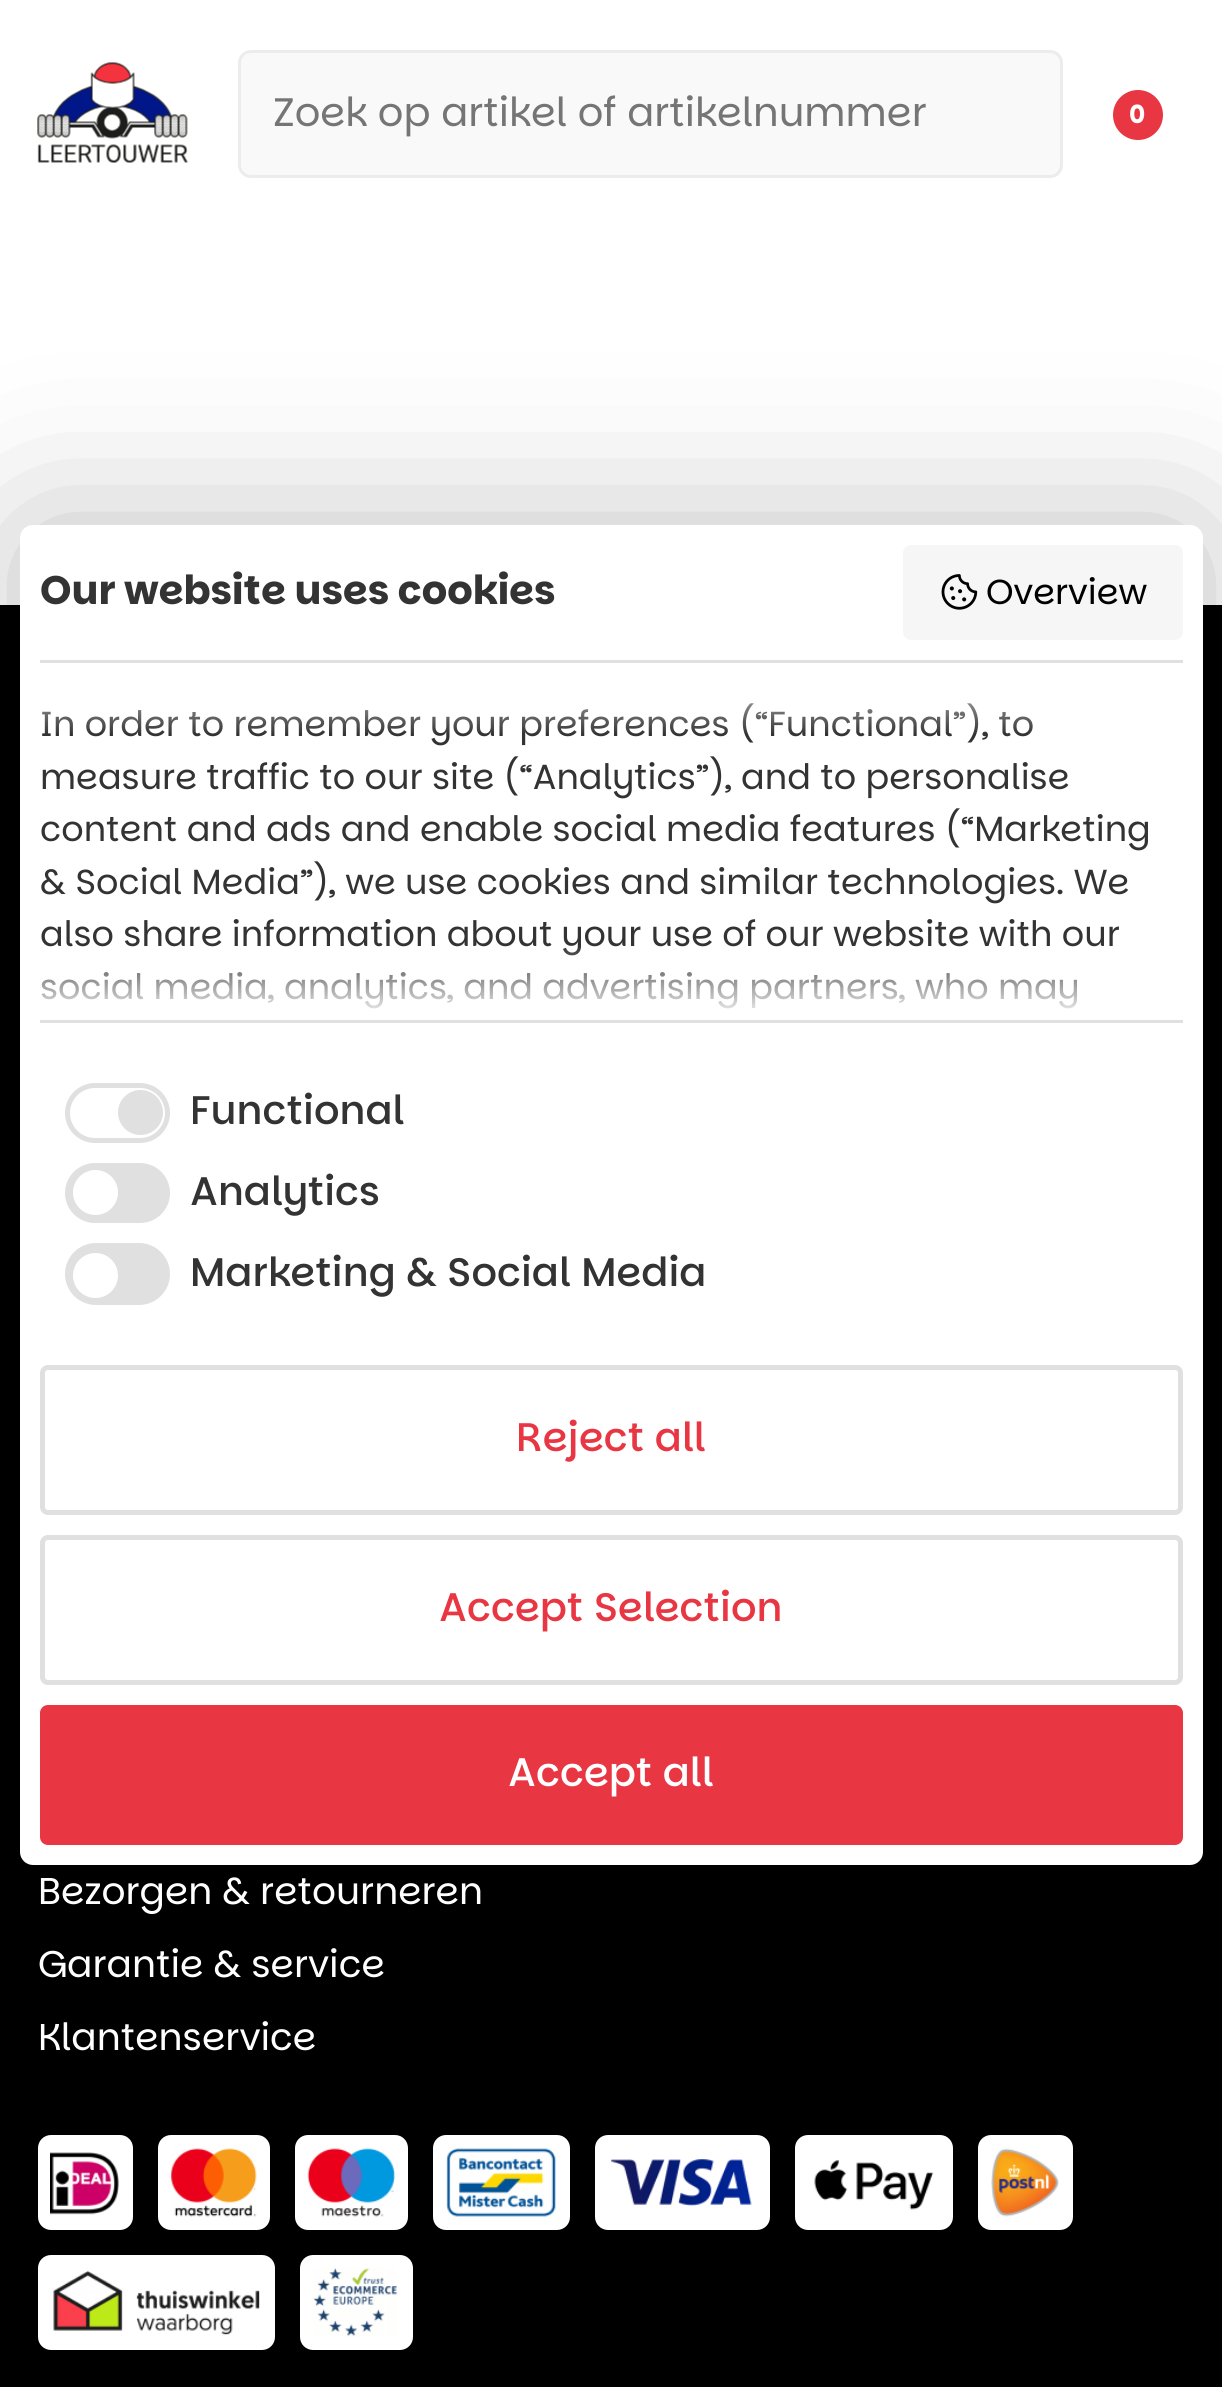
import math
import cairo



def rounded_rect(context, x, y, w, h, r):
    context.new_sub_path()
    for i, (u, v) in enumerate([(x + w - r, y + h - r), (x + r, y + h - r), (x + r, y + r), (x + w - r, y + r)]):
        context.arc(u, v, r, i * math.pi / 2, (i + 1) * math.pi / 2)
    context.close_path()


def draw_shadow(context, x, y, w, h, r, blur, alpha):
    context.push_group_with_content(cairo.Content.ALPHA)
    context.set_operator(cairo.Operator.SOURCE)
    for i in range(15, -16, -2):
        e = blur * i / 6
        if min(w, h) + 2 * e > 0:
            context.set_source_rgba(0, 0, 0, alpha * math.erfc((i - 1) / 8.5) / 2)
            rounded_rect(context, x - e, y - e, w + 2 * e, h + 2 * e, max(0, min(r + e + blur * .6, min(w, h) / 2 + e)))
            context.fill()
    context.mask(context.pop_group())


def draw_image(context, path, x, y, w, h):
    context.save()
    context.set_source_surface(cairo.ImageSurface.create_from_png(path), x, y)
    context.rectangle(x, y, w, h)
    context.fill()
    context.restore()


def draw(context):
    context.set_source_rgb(1, 1, 1)
    context.paint()
    draw_image(context, "images/1.png", 37, 62, 151, 101)
    context.set_source_rgb(249 / 255, 249 / 255, 249 / 255)
    rounded_rect(context, 239.5, 51.5, 822, 125, 11.5)
    context.fill_preserve()
    context.set_source_rgb(236 / 255, 236 / 255, 236 / 255)
    context.set_line_width(3)
    context.stroke()
    context.set_source_rgb(232 / 255, 54 / 255, 67 / 255)
    context.arc(1138, 115, 25, 0, 2 * math.pi)
    context.fill()
    context.set_source_rgb(0, 0, 0)
    context.rectangle(0, 605, 1222, 1782)
    context.fill()
    context.set_source_rgb(0, 0, 0)
    draw_shadow(context, 20, 525, 1183, 1340, 13, 80, 0.25)
    context.set_source_rgb(1, 1, 1)
    rounded_rect(context, 20, 525, 1183, 1340, 13)
    context.fill()
    context.set_source_rgb(246 / 255, 246 / 255, 246 / 255)
    rounded_rect(context, 903, 545, 280, 95, 8)
    context.fill()
    draw_image(context, "images/2.png", 941, 574, 37, 36)
    context.set_source_rgb(224 / 255, 224 / 255, 224 / 255)
    context.rectangle(40, 660, 1143, 3)
    context.fill()
    context.rectangle(40, 1020, 1143, 3)
    context.fill()
    rounded_rect(context, 67.5, 1085.5, 100, 55, 27.5)
    context.set_line_width(5)
    context.stroke()
    context.arc(140.5, 1112.5, 22.5, 0, 2 * math.pi)
    context.fill()
    rounded_rect(context, 67.5, 1165.5, 100, 55, 27.5)
    context.fill_preserve()
    context.stroke()
    context.set_source_rgb(1, 1, 1)
    context.arc(95.5, 1192.5, 22.5, 0, 2 * math.pi)
    context.fill()
    context.set_source_rgb(224 / 255, 224 / 255, 224 / 255)
    rounded_rect(context, 67.5, 1245.5, 100, 57, 28.5)
    context.fill_preserve()
    context.stroke()
    context.set_source_rgb(1, 1, 1)
    context.arc(95.5, 1275.5, 22.5, 0, 2 * math.pi)
    context.fill()
    rounded_rect(context, 42.5, 1367.5, 1138, 145, 5.5)
    context.set_source_rgb(224 / 255, 224 / 255, 224 / 255)
    context.stroke()
    rounded_rect(context, 42.5, 1537.5, 1138, 145, 5.5)
    context.stroke()
    context.set_source_rgb(232 / 255, 54 / 255, 67 / 255)
    rounded_rect(context, 40, 1705, 1143, 140, 8)
    context.fill()
    context.set_source_rgb(1, 1, 1)
    rounded_rect(context, 38, 2135, 95, 95, 13)
    context.fill()
    draw_image(context, "images/3.png", 50, 2152, 69, 63)
    rounded_rect(context, 158, 2135, 112, 95, 13)
    context.fill()
    draw_image(context, "images/4.png", 171, 2148, 86, 69)
    rounded_rect(context, 295, 2135, 113, 95, 13)
    context.fill()
    draw_image(context, "images/5.png", 307, 2148, 88, 69)
    rounded_rect(context, 433, 2135, 137, 95, 13)
    context.fill()
    draw_image(context, "images/6.png", 446, 2148, 110, 69)
    rounded_rect(context, 595, 2135, 175, 95, 13)
    context.fill()
    draw_image(context, "images/7.png", 610, 2159, 142, 47)
    rounded_rect(context, 795, 2135, 158, 95, 13)
    context.fill()
    draw_image(context, "images/8.png", 814, 2160, 120, 50)
    rounded_rect(context, 978, 2135, 95, 95, 13)
    context.fill()
    draw_image(context, "images/9.png", 991, 2148, 68, 69)
    rounded_rect(context, 38, 2255, 237, 95, 13)
    context.fill()
    draw_image(context, "images/10.png", 53, 2270, 207, 65)
    rounded_rect(context, 300, 2255, 113, 95, 13)
    context.fill()
    draw_image(context, "images/11.png", 313, 2268, 85, 69)
    context.select_font_face("Parkinsans")
    context.set_font_size(40)
    context.set_source_rgb(117 / 255, 117 / 255, 117 / 255)
    context.move_to(273, 126)
    context.show_text("Zoek op artikel of artikelnummer")
    context.select_font_face("Parkinsans", cairo.FontSlant.NORMAL, cairo.FontWeight.BOLD)
    context.set_font_size(25)
    context.set_source_rgb(1, 1, 1)
    context.move_to(1129, 123)
    context.show_text("0")
    context.set_font_size(40)
    context.set_source_rgb(51 / 255, 51 / 255, 51 / 255)
    context.move_to(40, 604)
    context.show_text("Our website uses cookies")
    context.select_font_face("Parkinsans")
    context.set_font_size(35)
    context.set_source_rgb(0, 0, 0)
    context.move_to(986, 604)
    context.show_text("Overview")
    context.set_source_rgb(51 / 255, 51 / 255, 51 / 255)
    context.move_to(40, 736)
    context.show_text("In order to remember your preferences (“Functional”), to")
    context.move_to(40, 789)
    context.show_text("measure traffic to our site (“Analytics”), and to personalise")
    context.move_to(40, 841)
    context.show_text("content and ads and enable social media features (“Marketing")
    context.move_to(40, 894)
    context.show_text("& Social Media”), we use cookies and similar technologies. We")
    context.move_to(40, 946)
    context.show_text("also share information about your use of our website with our")
    context.move_to(40, 999)
    context.show_text("social media, analytics, and advertising partners, who may")
    gradient = cairo.LinearGradient(611, 735, 611, 660)
    gradient.add_color_stop_rgba(0, 1, 1, 1, 0)
    gradient.add_color_stop_rgba(1, 1, 1, 1, 1)
    context.set_source(gradient)
    context.rectangle(42, 703, 991, 30)
    context.fill()
    gradient = cairo.LinearGradient(611, 945, 611, 1020)
    gradient.add_color_stop_rgba(0, 1, 1, 1, 0)
    gradient.add_color_stop_rgba(1, 1, 1, 1, 1)
    context.set_source(gradient)
    context.rectangle(41, 947, 1036, 62)
    context.fill()
    context.select_font_face("Parkinsans Medium")
    context.set_font_size(40)
    context.set_source_rgb(51 / 255, 51 / 255, 51 / 255)
    context.move_to(190, 1124)
    context.show_text("Functional")
    context.move_to(190, 1205)
    context.show_text("Analytics")
    context.move_to(190, 1286)
    context.show_text("Marketing & Social Media")
    context.set_source_rgb(232 / 255, 54 / 255, 67 / 255)
    context.move_to(516, 1451)
    context.show_text("Reject all")
    context.move_to(439, 1621)
    context.show_text("Accept Selection")
    context.set_source_rgb(1, 1, 1)
    context.move_to(508, 1786)
    context.show_text("Accept all")
    context.select_font_face("Parkinsans")
    context.set_font_size(37.5)
    context.move_to(38, 1904)
    context.show_text("Bezorgen & retourneren")
    context.move_to(38, 1977)
    context.show_text("Garantie & service")
    context.move_to(38, 2050)
    context.show_text("Klantenservice")


surface = cairo.ImageSurface(cairo.Format.RGB24, 1222, 2387)
context = cairo.Context(surface)
options = cairo.FontOptions()
options.set_hint_metrics(cairo.HintMetrics.OFF)
options.set_hint_style(cairo.HintStyle.NONE)
context.set_font_options(options)
context.set_miter_limit(4)
draw(context)
surface.write_to_png("out.png")
